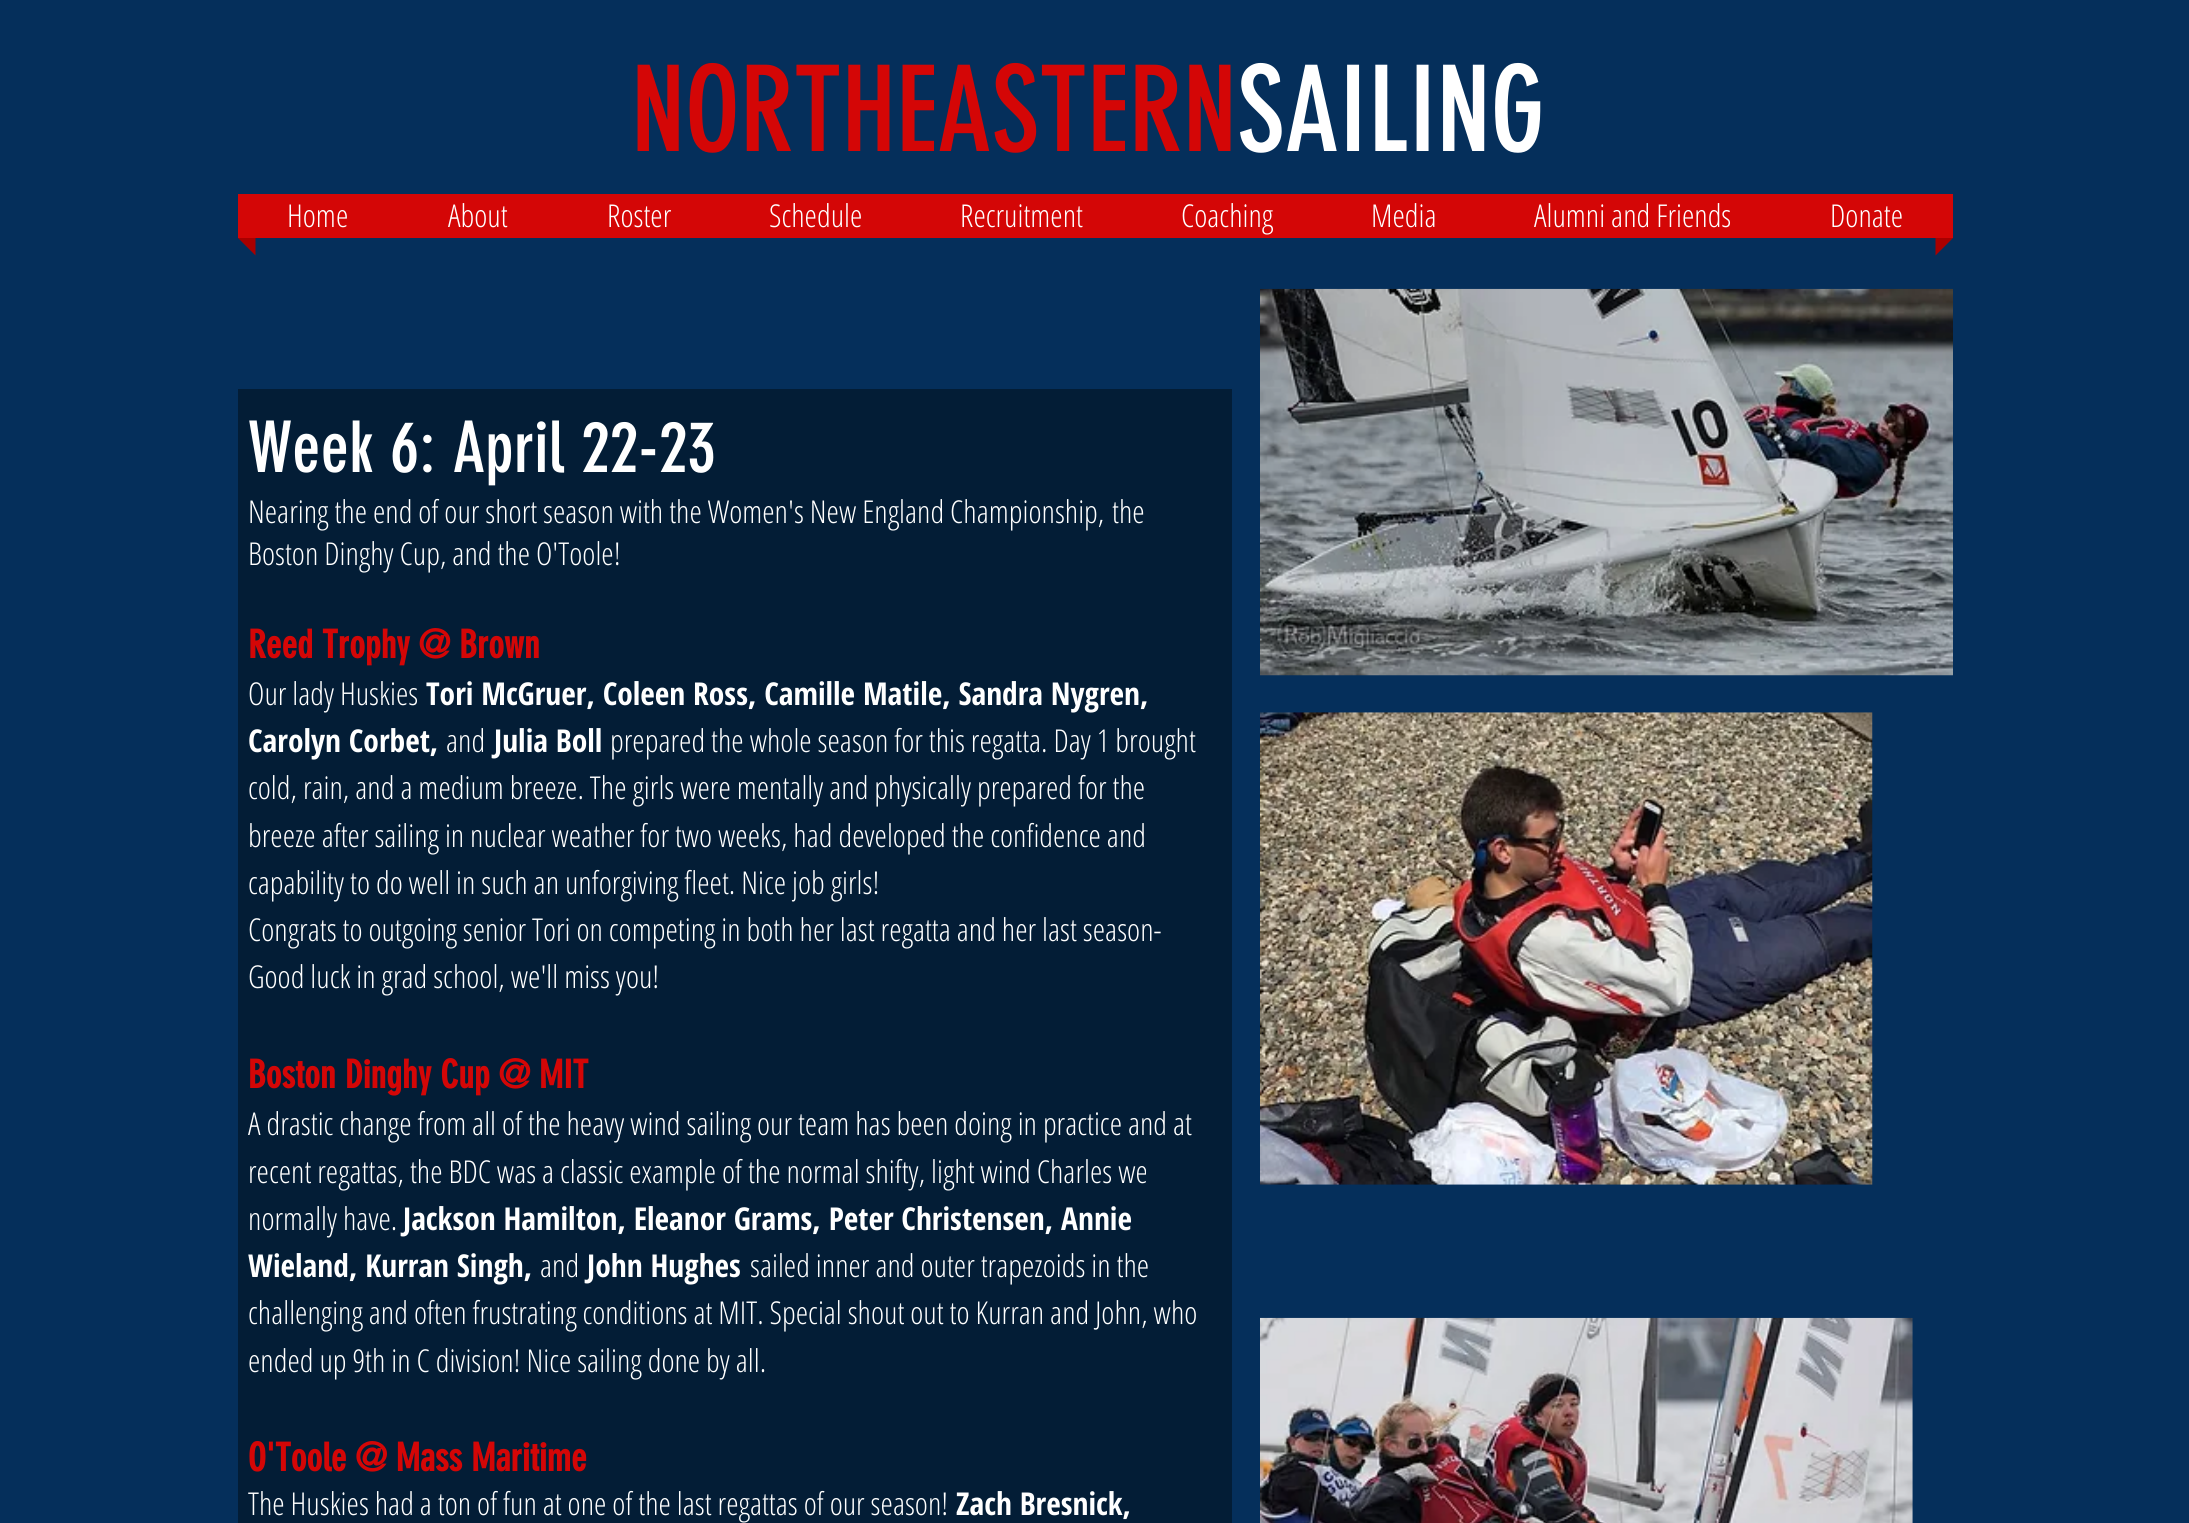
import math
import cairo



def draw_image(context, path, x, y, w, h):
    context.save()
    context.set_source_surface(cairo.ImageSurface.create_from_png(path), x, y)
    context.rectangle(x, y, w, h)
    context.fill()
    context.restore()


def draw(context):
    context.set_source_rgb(5 / 255, 47 / 255, 91 / 255)
    context.paint()
    context.set_source_rgb(212 / 255, 6 / 255, 6 / 255)
    context.rectangle(238, 194, 1715, 44)
    context.fill()
    context.set_source_rgb(169 / 255, 0, 0)
    context.new_path()
    context.move_to(238, 238)
    context.line_to(255.5, 238)
    context.line_to(255.5, 255.5)
    context.close_path()
    context.fill()
    context.new_path()
    context.move_to(1935.5, 238)
    context.line_to(1953, 238)
    context.line_to(1935.5, 255.5)
    context.close_path()
    context.fill()
    context.set_source_rgb(3 / 255, 29 / 255, 54 / 255)
    context.rectangle(238, 389, 994, 1134)
    context.fill()
    draw_image(context, "images/1.png", 1260, 288, 693, 388)
    draw_image(context, "images/2.png", 1260, 712, 613, 473)
    draw_image(context, "images/3.png", 1260, 1317, 653, 206)
    context.select_font_face("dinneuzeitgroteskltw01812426")
    context.set_font_size(117.25)
    context.set_source_rgb(212 / 255, 6 / 255, 6 / 255)
    context.move_to(631, 151)
    context.show_text("NORTHEASTERN")
    context.set_source_rgb(1, 1, 1)
    context.move_to(1237, 151)
    context.show_text("SAILING")
    context.select_font_face("Open Sans Condensed Light")
    context.set_font_size(31.5)
    context.move_to(287, 227)
    context.show_text("Home")
    context.move_to(448, 227)
    context.show_text("About")
    context.move_to(607, 227)
    context.show_text("Roster")
    context.move_to(769, 227)
    context.show_text("Schedule")
    context.move_to(960, 227)
    context.show_text("Recruitment")
    context.move_to(1181, 227)
    context.show_text("Coaching")
    context.move_to(1371, 227)
    context.show_text("Media")
    context.move_to(1534, 227)
    context.show_text("Alumni and Friends")
    context.move_to(1830, 227)
    context.show_text("Donate")
    context.select_font_face("dinneuzeitgroteskltw01812426")
    context.set_font_size(70)
    context.move_to(248, 472)
    context.show_text("Week 6: April 22-23")
    context.select_font_face("Open Sans Condensed Light")
    context.set_font_size(31.5)
    context.move_to(248, 523)
    context.show_text("Nearing the end of our short season with the Women's New England Championship,")
    context.move_to(1112, 523)
    context.show_text("the")
    context.move_to(248, 565)
    context.show_text("Boston Dinghy Cup, and the O'Toole!")
    context.select_font_face("dinneuzeitgroteskltw01812426", cairo.FontSlant.NORMAL, cairo.FontWeight.BOLD)
    context.set_font_size(38.5)
    context.set_source_rgb(212 / 255, 6 / 255, 6 / 255)
    context.move_to(248, 658)
    context.show_text("Reed Trophy @ Brown")
    context.select_font_face("Open Sans Condensed Light")
    context.set_font_size(31.5)
    context.set_source_rgb(1, 1, 1)
    context.move_to(248, 705)
    context.show_text("Our lady Huskies")
    context.select_font_face("Open Sans Condensed", cairo.FontSlant.NORMAL, cairo.FontWeight.BOLD)
    context.move_to(426, 705)
    context.show_text("Tori McGruer, Coleen Ross, Camille Matile, Sandra Nygren,")
    context.move_to(248, 752)
    context.show_text("Carolyn Corbet,")
    context.select_font_face("Open Sans Condensed Light")
    context.move_to(446, 752)
    context.show_text("and")
    context.select_font_face("Open Sans Condensed", cairo.FontSlant.NORMAL, cairo.FontWeight.BOLD)
    context.move_to(494, 752)
    context.show_text("Julia Boll")
    context.select_font_face("Open Sans Condensed Light")
    context.move_to(610, 752)
    context.show_text("prepared the whole season for this regatta. Day 1 brought")
    context.move_to(248, 799)
    context.show_text("cold, rain, and a medium breeze. The girls were mentally and physically prepared for the")
    context.move_to(248, 847)
    context.show_text("breeze after sailing in nuclear weather for two weeks, had developed the confidence and")
    context.move_to(248, 894)
    context.show_text("capability to do well in such an unforgiving fleet. Nice job girls!")
    context.move_to(248, 941)
    context.show_text("Congrats to outgoing senior Tori on competing in both her last regatta and her last season-")
    context.move_to(248, 988)
    context.show_text("Good luck in grad school, we'll miss you!")
    context.select_font_face("dinneuzeitgroteskltw01812426", cairo.FontSlant.NORMAL, cairo.FontWeight.BOLD)
    context.set_font_size(38.5)
    context.set_source_rgb(212 / 255, 6 / 255, 6 / 255)
    context.move_to(248, 1088)
    context.show_text("Boston Dinghy Cup @ MIT")
    context.select_font_face("Open Sans Condensed Light")
    context.set_font_size(31.5)
    context.set_source_rgb(1, 1, 1)
    context.move_to(248, 1135)
    context.show_text("A drastic change from all of the heavy wind sailing our team has been doing in practice and at")
    context.move_to(248, 1183)
    context.show_text("recent regattas, the BDC was a classic example of the normal shifty, light wind Charles we")
    context.move_to(248, 1230)
    context.show_text("normally have.")
    context.select_font_face("Open Sans Condensed", cairo.FontSlant.NORMAL, cairo.FontWeight.BOLD)
    context.move_to(403, 1230)
    context.show_text("Jackson Hamilton, Eleanor Grams, Peter Christensen, Annie")
    context.move_to(248, 1277)
    context.show_text("Wieland, Kurran Singh,")
    context.select_font_face("Open Sans Condensed Light")
    context.move_to(540, 1277)
    context.show_text("and")
    context.select_font_face("Open Sans Condensed", cairo.FontSlant.NORMAL, cairo.FontWeight.BOLD)
    context.move_to(587, 1277)
    context.show_text("John Hughes")
    context.select_font_face("Open Sans Condensed Light")
    context.move_to(750, 1277)
    context.show_text("sailed inner and outer trapezoids in the")
    context.move_to(248, 1324)
    context.show_text("challenging and often frustrating conditions at MIT. Special shout out to Kurran and John, who")
    context.move_to(248, 1372)
    context.show_text("ended up 9th in C division! Nice sailing done by all.")
    context.select_font_face("dinneuzeitgroteskltw01812426", cairo.FontSlant.NORMAL, cairo.FontWeight.BOLD)
    context.set_font_size(38.5)
    context.set_source_rgb(212 / 255, 6 / 255, 6 / 255)
    context.move_to(248, 1471)
    context.show_text("O'Toole @ Mass Maritime")
    context.select_font_face("Open Sans Condensed Light")
    context.set_font_size(31.5)
    context.set_source_rgb(1, 1, 1)
    context.move_to(248, 1515)
    context.show_text("The Huskies had a ton of fun at one of the last regattas of our season!")
    context.select_font_face("Open Sans Condensed", cairo.FontSlant.NORMAL, cairo.FontWeight.BOLD)
    context.move_to(956, 1515)
    context.show_text("Zach Bresnick,")


surface = cairo.ImageSurface(cairo.Format.RGB24, 2189, 1523)
context = cairo.Context(surface)
options = cairo.FontOptions()
options.set_hint_metrics(cairo.HintMetrics.OFF)
options.set_hint_style(cairo.HintStyle.NONE)
context.set_font_options(options)
context.set_miter_limit(4)
draw(context)
surface.write_to_png("out.png")
